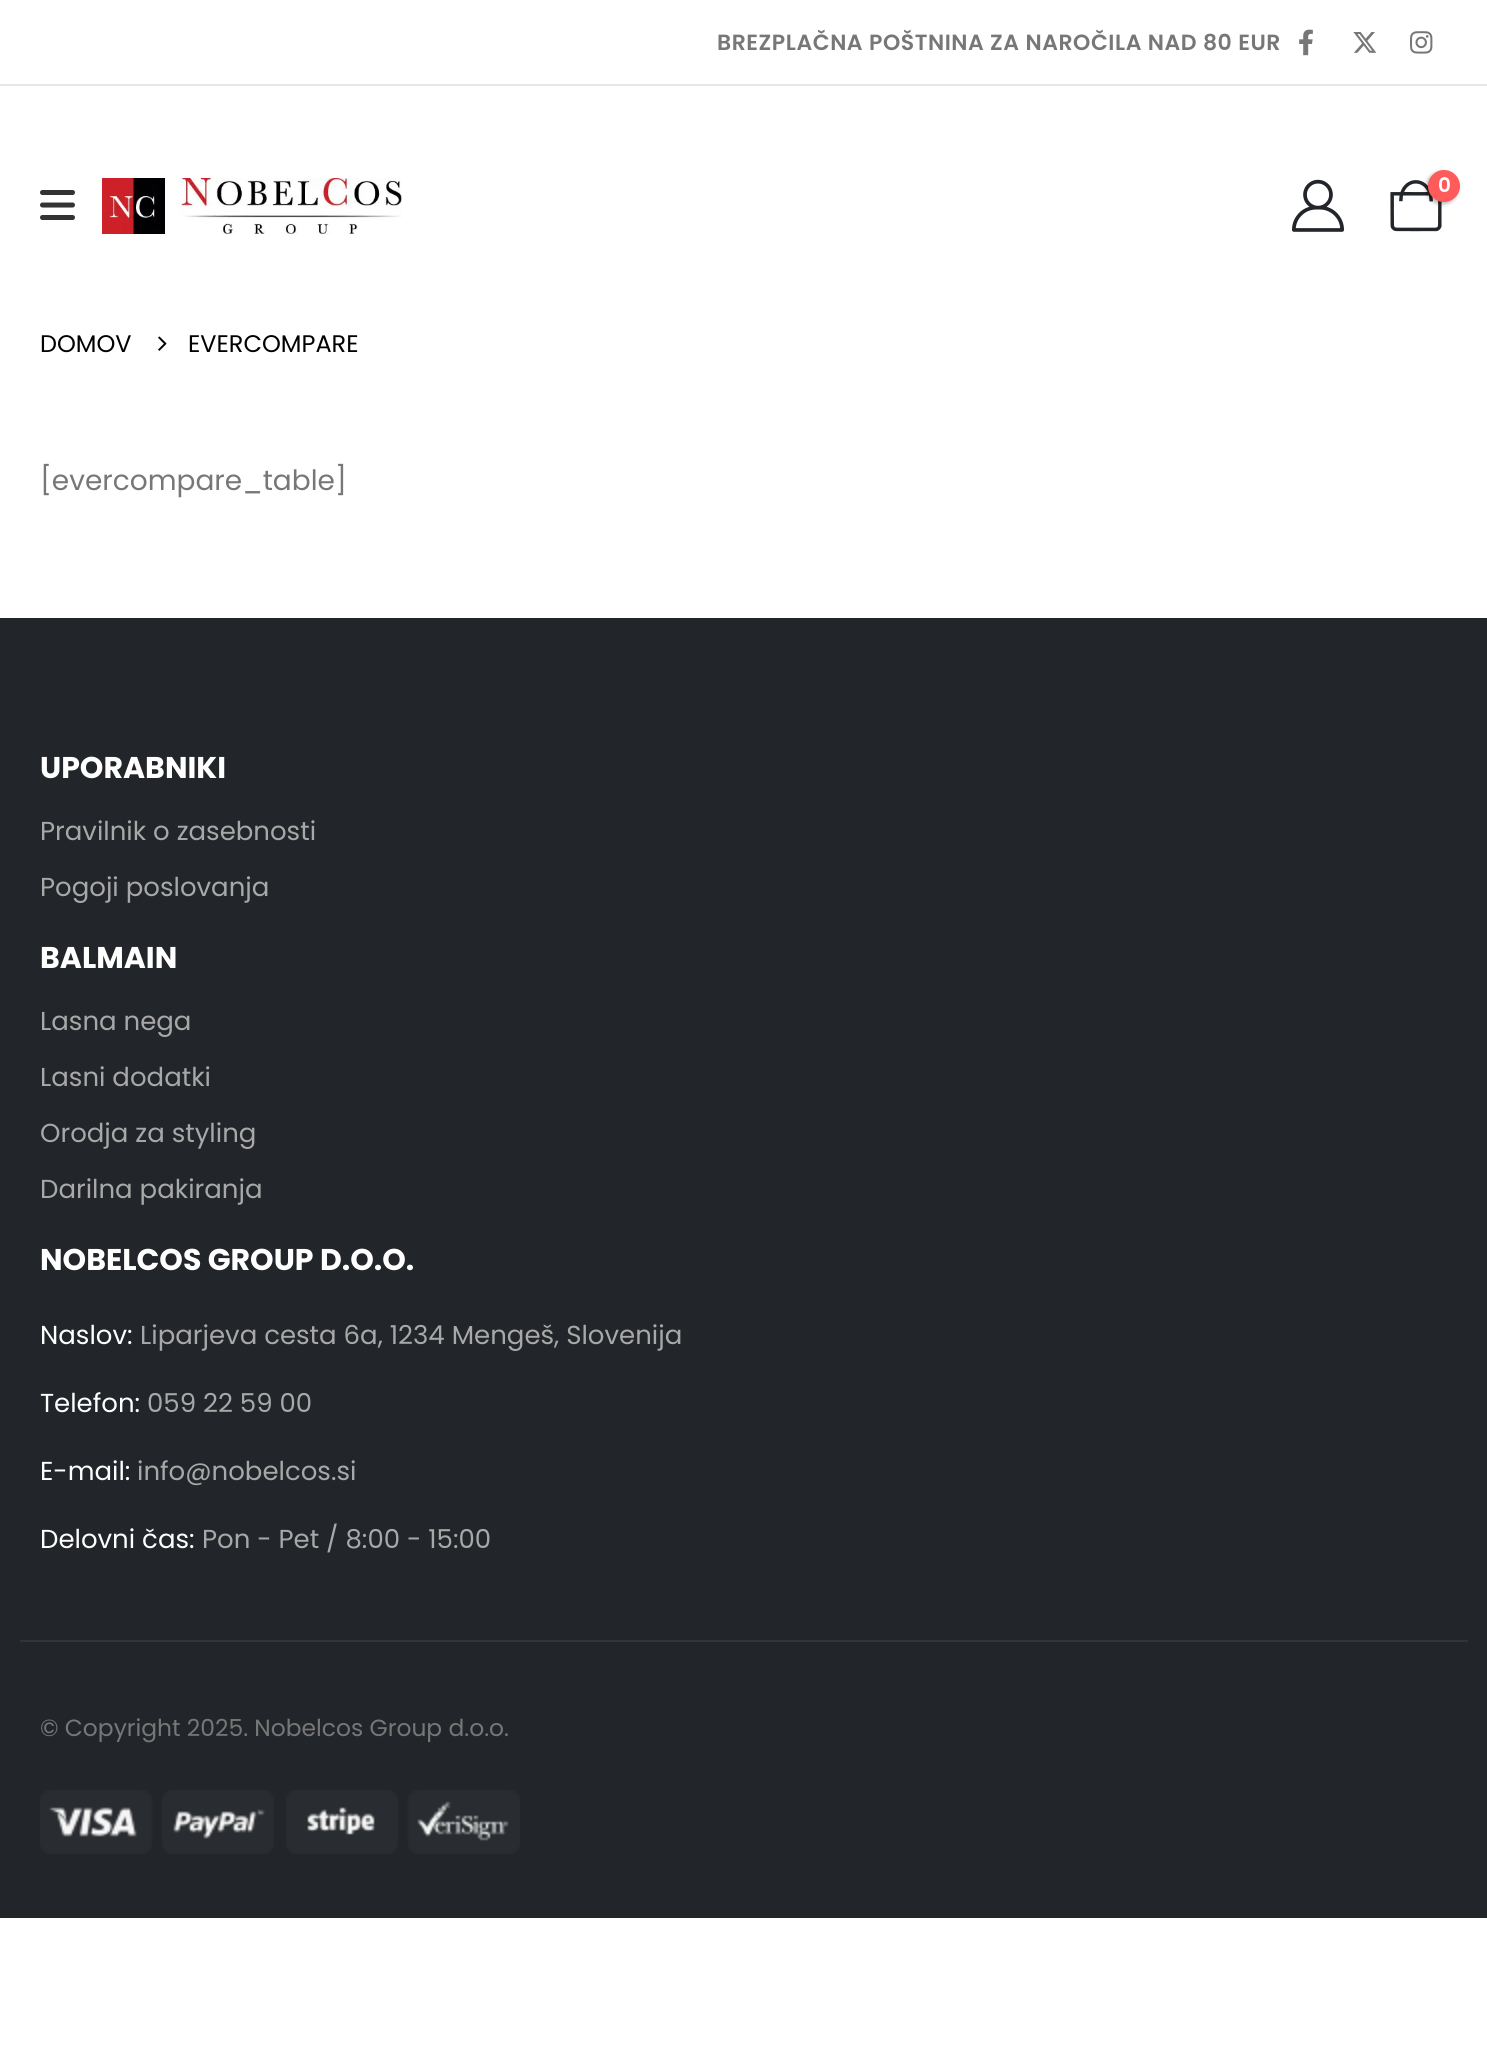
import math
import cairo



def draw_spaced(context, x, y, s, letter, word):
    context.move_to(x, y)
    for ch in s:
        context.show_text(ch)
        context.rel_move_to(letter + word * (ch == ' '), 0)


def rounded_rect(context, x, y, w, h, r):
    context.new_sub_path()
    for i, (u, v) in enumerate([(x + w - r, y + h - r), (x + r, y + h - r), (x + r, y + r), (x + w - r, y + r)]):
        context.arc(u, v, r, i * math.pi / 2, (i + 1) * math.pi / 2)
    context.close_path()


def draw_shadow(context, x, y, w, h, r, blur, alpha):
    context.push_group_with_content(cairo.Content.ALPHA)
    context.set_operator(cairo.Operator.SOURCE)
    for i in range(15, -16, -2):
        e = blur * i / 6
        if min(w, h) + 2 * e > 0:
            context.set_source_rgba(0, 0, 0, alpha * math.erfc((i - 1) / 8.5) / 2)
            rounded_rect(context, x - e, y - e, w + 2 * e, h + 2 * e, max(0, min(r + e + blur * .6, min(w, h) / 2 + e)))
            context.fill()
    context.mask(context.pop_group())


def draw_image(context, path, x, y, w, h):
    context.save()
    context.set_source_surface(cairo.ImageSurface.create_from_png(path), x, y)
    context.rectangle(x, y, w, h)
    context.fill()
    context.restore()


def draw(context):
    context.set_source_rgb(1, 1, 1)
    context.paint()
    draw_image(context, "images/1.png", 1299, 29, 14, 27)
    draw_image(context, "images/2.png", 1353, 32, 24, 21)
    draw_image(context, "images/3.png", 1410, 31, 23, 23)
    context.set_source_rgb(231 / 255, 231 / 255, 231 / 255)
    context.rectangle(0, 84, 1487, 2)
    context.fill()
    draw_image(context, "images/4.png", 40, 190, 35, 30)
    draw_image(context, "images/5.png", 102, 178, 300, 56)
    draw_image(context, "images/6.png", 1292, 179, 52, 53)
    draw_image(context, "images/7.png", 1390, 180, 52, 52)
    context.set_source_rgb(0, 0, 0)
    draw_shadow(context, 1426, 172, 32, 32, 16, 2, 0.3)
    context.set_source_rgb(1, 91 / 255, 91 / 255)
    context.arc(1444, 186, 16, 0, 2 * math.pi)
    context.fill()
    draw_image(context, "images/8.png", 158, 336, 9, 15)
    context.set_source_rgb(34 / 255, 37 / 255, 41 / 255)
    context.rectangle(0, 618, 1487, 1300)
    context.fill()
    context.set_source_rgb(49 / 255, 52 / 255, 56 / 255)
    context.rectangle(20, 1640, 1448, 2)
    context.fill()
    draw_image(context, "images/9.png", 40, 1790, 480, 64)
    context.select_font_face("Poppins SemiBold")
    context.set_font_size(22)
    context.set_source_rgb(119 / 255, 119 / 255, 119 / 255)
    draw_spaced(context, 717, 50, "BREZPLAČNA POŠTNINA ZA NAROČILA NAD 80 EUR", 0.55, 0)
    context.set_font_size(20)
    context.set_source_rgb(1, 1, 1)
    context.move_to(1438, 192)
    context.show_text("0")
    context.select_font_face("Poppins")
    context.set_font_size(24)
    context.set_source_rgb(0, 0, 0)
    context.move_to(40, 352)
    context.show_text("DOMOV")
    context.move_to(188, 352)
    context.show_text("EVERCOMPARE")
    context.set_font_size(28)
    context.set_source_rgb(119 / 255, 119 / 255, 119 / 255)
    context.move_to(40, 490)
    context.show_text("[evercompare_table]")
    context.select_font_face("Poppins", cairo.FontSlant.NORMAL, cairo.FontWeight.BOLD)
    context.set_font_size(30)
    context.set_source_rgb(1, 1, 1)
    context.move_to(40, 778)
    context.show_text("UPORABNIKI")
    context.select_font_face("Poppins")
    context.set_font_size(26)
    context.set_source_rgb(168 / 255, 168 / 255, 168 / 255)
    context.move_to(40, 840)
    context.show_text("Pravilnik o zasebnosti")
    context.move_to(40, 896)
    context.show_text("Pogoji poslovanja")
    context.select_font_face("Poppins", cairo.FontSlant.NORMAL, cairo.FontWeight.BOLD)
    context.set_font_size(30)
    context.set_source_rgb(1, 1, 1)
    context.move_to(40, 968)
    context.show_text("BALMAIN")
    context.select_font_face("Poppins")
    context.set_font_size(26)
    context.set_source_rgb(168 / 255, 168 / 255, 168 / 255)
    context.move_to(40, 1030)
    context.show_text("Lasna nega")
    context.move_to(40, 1086)
    context.show_text("Lasni dodatki")
    context.move_to(40, 1142)
    context.show_text("Orodja za styling")
    context.move_to(40, 1198)
    context.show_text("Darilna pakiranja")
    context.select_font_face("Poppins", cairo.FontSlant.NORMAL, cairo.FontWeight.BOLD)
    context.set_font_size(30)
    context.set_source_rgb(1, 1, 1)
    context.move_to(40, 1270)
    context.show_text("NOBELCOS GROUP D.O.O.")
    context.select_font_face("Poppins")
    context.set_font_size(26)
    context.move_to(40, 1344)
    context.show_text("Naslov:")
    context.set_source_rgb(168 / 255, 168 / 255, 168 / 255)
    context.move_to(140, 1344)
    context.show_text("Liparjeva cesta 6a, 1234 Mengeš, Slovenija")
    context.set_source_rgb(1, 1, 1)
    context.move_to(40, 1412)
    context.show_text("Telefon:")
    context.set_source_rgb(168 / 255, 168 / 255, 168 / 255)
    context.move_to(147, 1412)
    context.show_text("059 22 59 00")
    context.set_source_rgb(1, 1, 1)
    context.move_to(40, 1480)
    context.show_text("E-mail:")
    context.set_source_rgb(168 / 255, 168 / 255, 168 / 255)
    context.move_to(137, 1480)
    context.show_text("info@nobelcos.si")
    context.set_source_rgb(1, 1, 1)
    context.move_to(40, 1548)
    context.show_text("Delovni čas:")
    context.set_source_rgb(168 / 255, 168 / 255, 168 / 255)
    context.move_to(202, 1548)
    context.show_text("Pon - Pet / 8:00 - 15:00")
    context.set_font_size(23.4)
    context.set_source_rgb(119 / 255, 119 / 255, 119 / 255)
    context.move_to(40, 1736)
    context.show_text("© Copyright 2025. Nobelcos Group d.o.o.")


surface = cairo.ImageSurface(cairo.Format.RGB24, 1487, 2063)
context = cairo.Context(surface)
options = cairo.FontOptions()
options.set_hint_metrics(cairo.HintMetrics.OFF)
options.set_hint_style(cairo.HintStyle.NONE)
context.set_font_options(options)
context.set_miter_limit(4)
draw(context)
surface.write_to_png("out.png")
